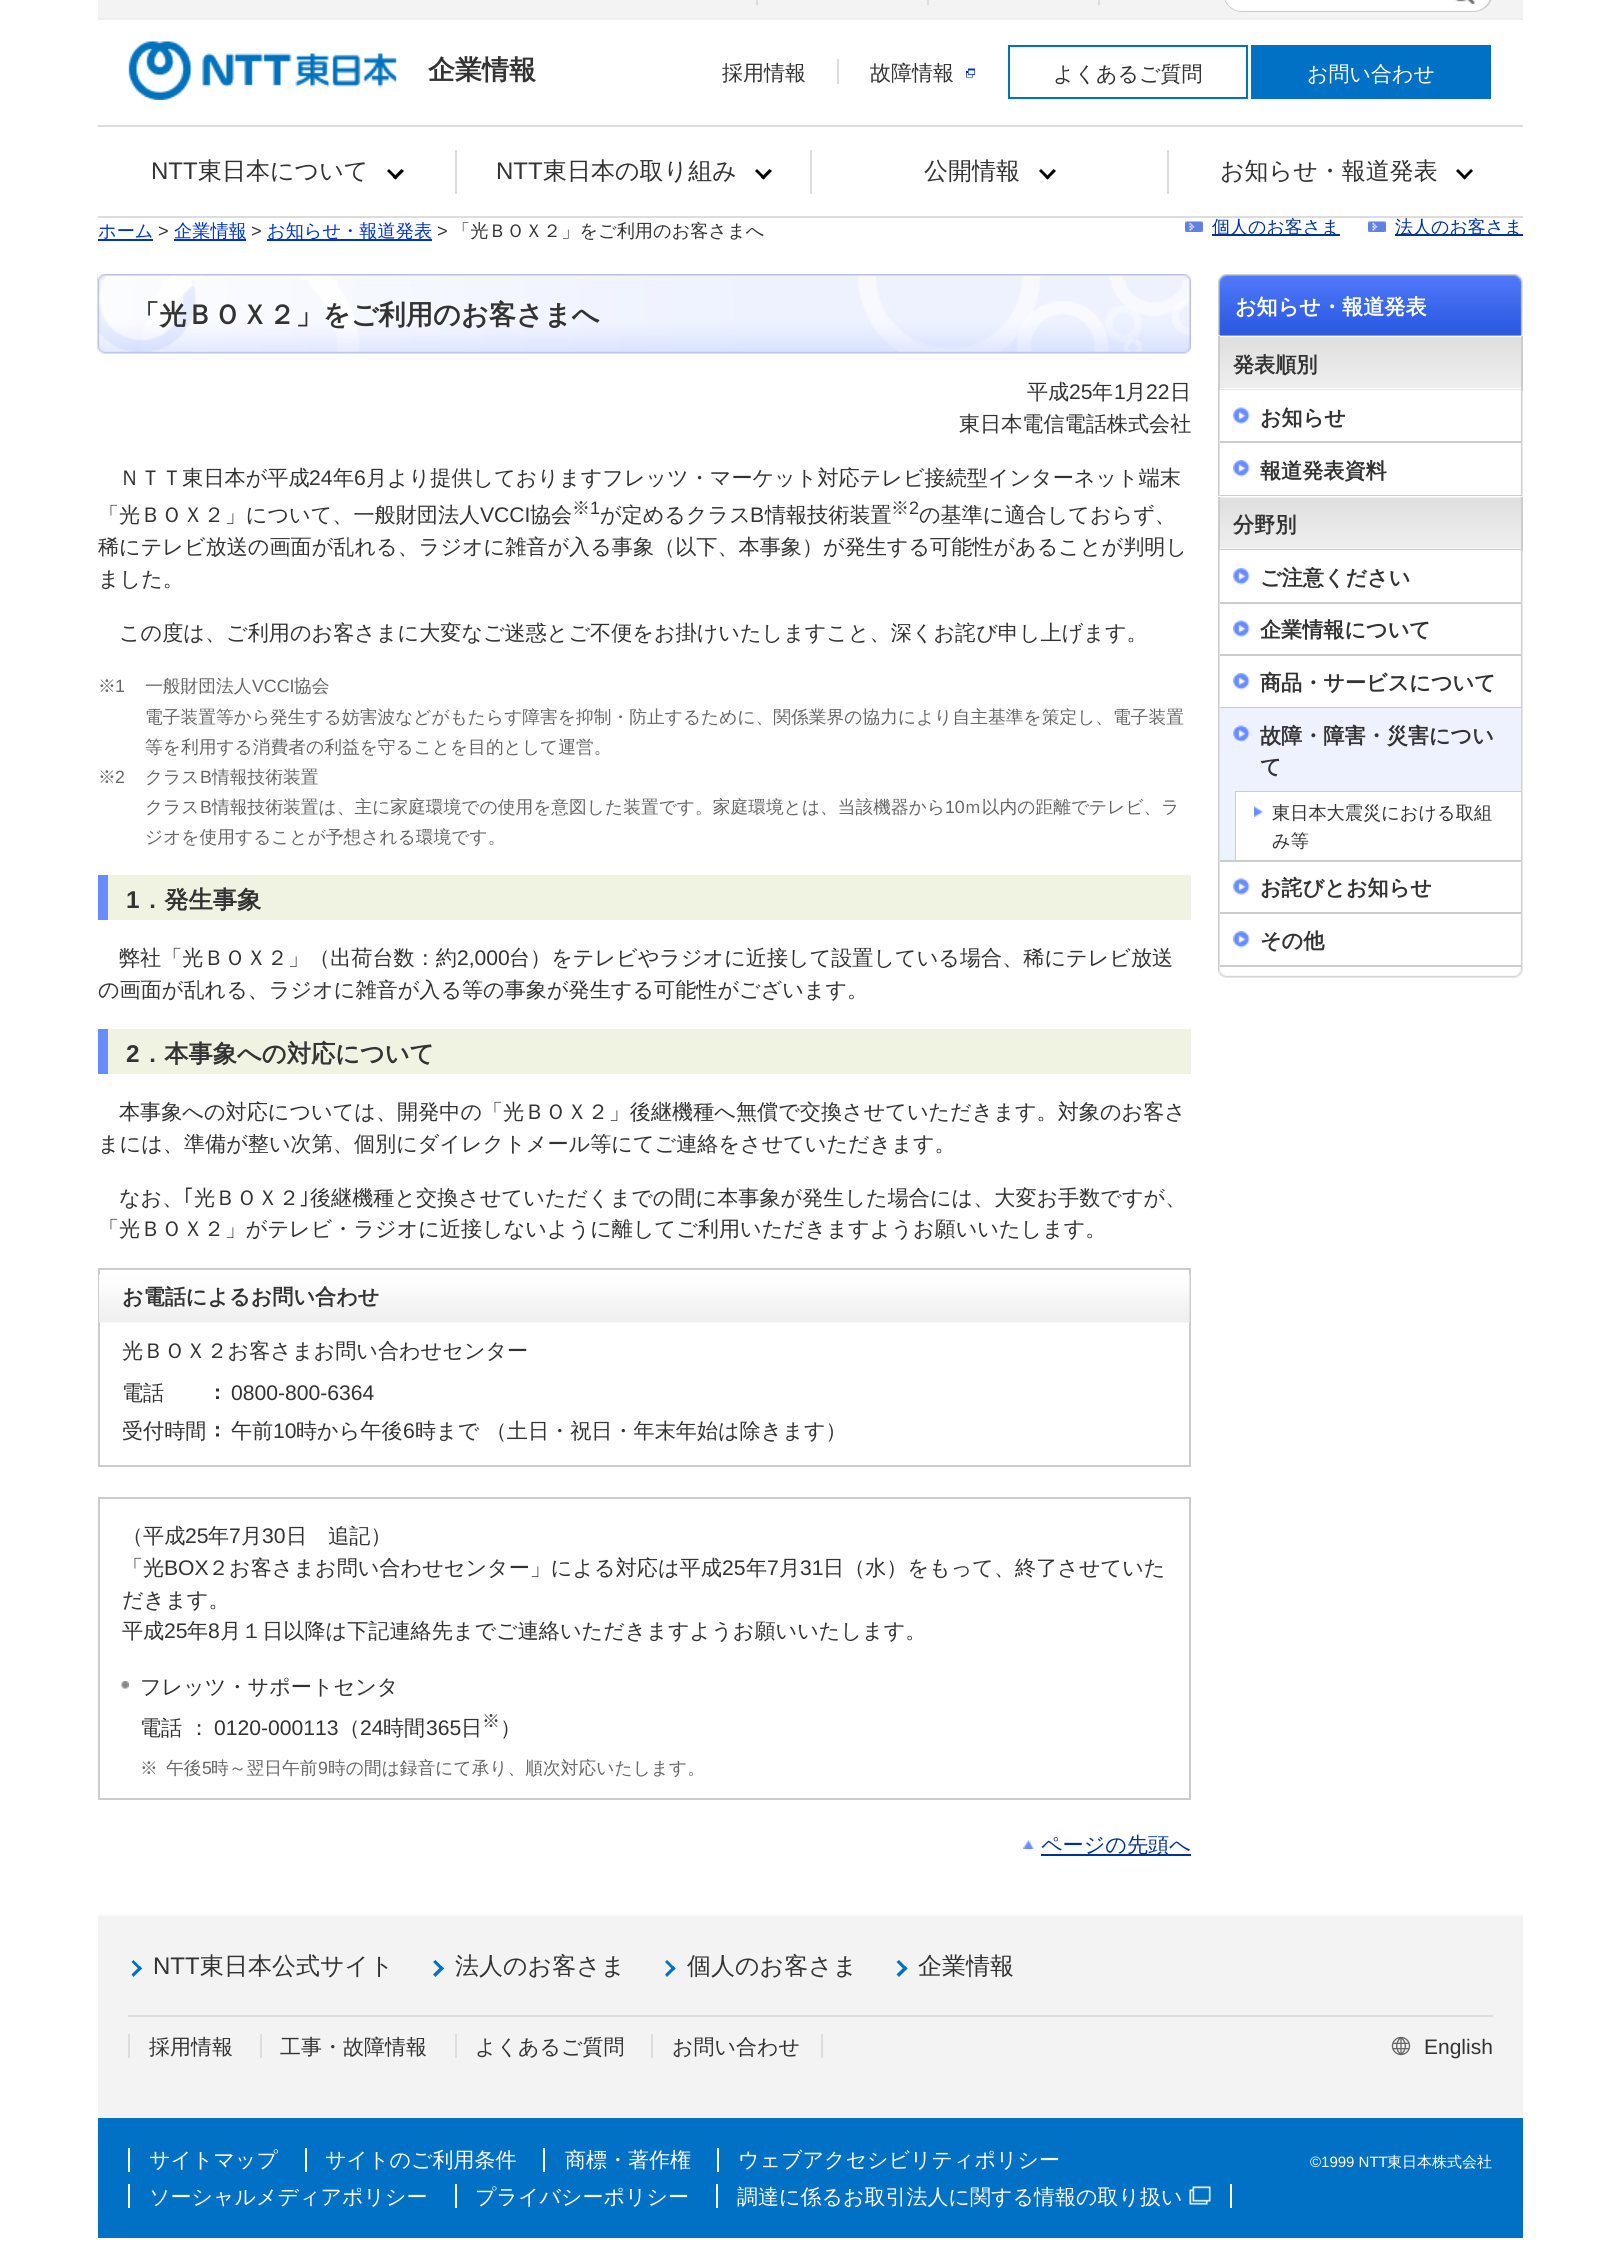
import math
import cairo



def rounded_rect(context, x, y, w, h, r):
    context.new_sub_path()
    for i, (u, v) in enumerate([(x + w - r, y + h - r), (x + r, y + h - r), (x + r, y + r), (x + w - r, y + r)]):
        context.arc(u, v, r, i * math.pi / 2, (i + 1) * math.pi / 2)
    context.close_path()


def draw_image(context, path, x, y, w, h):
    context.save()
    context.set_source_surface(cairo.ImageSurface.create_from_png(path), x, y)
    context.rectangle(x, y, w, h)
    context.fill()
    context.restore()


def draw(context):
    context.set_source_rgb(1, 1, 1)
    context.paint()
    draw_image(context, "images/1.png", 128, 41, 269, 59)
    context.set_source_rgb(243 / 255, 243 / 255, 243 / 255)
    context.rectangle(98, 0, 1425, 18)
    context.fill()
    context.set_source_rgb(238 / 255, 238 / 255, 238 / 255)
    context.rectangle(98, 18, 1425, 2)
    context.fill()
    context.set_source_rgb(221 / 255, 221 / 255, 221 / 255)
    context.rectangle(756, 0, 2, 5)
    context.fill()
    context.rectangle(927, 0, 2, 5)
    context.fill()
    context.rectangle(1098, 0, 2, 5)
    context.fill()
    rounded_rect(context, 1224, -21, 268, 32, 18.5)
    context.set_source_rgb(204 / 255, 204 / 255, 204 / 255)
    context.stroke()
    context.set_source_rgb(1, 1, 1)
    rounded_rect(context, 1224, -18, 267, 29, 18)
    context.fill()
    draw_image(context, "images/2.png", 1455, 0, 20, 4)
    context.set_source_rgb(221 / 255, 221 / 255, 221 / 255)
    context.rectangle(837, 59, 2, 25)
    context.fill()
    draw_image(context, "images/3.png", 966, 68, 9, 10)
    context.rectangle(1009, 46, 238, 52)
    context.set_source_rgb(0, 113 / 255, 197 / 255)
    context.stroke()
    context.rectangle(1251, 45, 240, 54)
    context.fill()
    context.set_source_rgb(221 / 255, 221 / 255, 221 / 255)
    context.rectangle(98, 125, 1425, 2)
    context.fill()
    context.set_source_rgb(0, 0, 0)
    context.new_path()
    context.move_to(401.5, 169)
    context.line_to(404, 171)
    context.line_to(395.5, 179.5)
    context.line_to(393, 177.5)
    context.close_path()
    context.fill()
    context.new_path()
    context.move_to(389, 169)
    context.line_to(397.5, 177.5)
    context.line_to(395.5, 179.5)
    context.line_to(387, 171)
    context.close_path()
    context.fill()
    context.set_source_rgb(221 / 255, 221 / 255, 221 / 255)
    context.rectangle(455, 150, 2, 44)
    context.fill()
    context.set_source_rgb(0, 0, 0)
    context.new_path()
    context.move_to(769.5, 169)
    context.line_to(772, 171)
    context.line_to(763.5, 179.5)
    context.line_to(761, 177.5)
    context.close_path()
    context.fill()
    context.new_path()
    context.move_to(757, 169)
    context.line_to(765.5, 177.5)
    context.line_to(763.5, 179.5)
    context.line_to(755, 171)
    context.close_path()
    context.fill()
    context.set_source_rgb(221 / 255, 221 / 255, 221 / 255)
    context.rectangle(810, 150, 2, 44)
    context.fill()
    context.set_source_rgb(0, 0, 0)
    context.new_path()
    context.move_to(1053.5, 169)
    context.line_to(1056, 171)
    context.line_to(1047.5, 179.5)
    context.line_to(1045.5, 177.5)
    context.close_path()
    context.fill()
    context.new_path()
    context.move_to(1041, 169)
    context.line_to(1049.5, 177.5)
    context.line_to(1047.5, 179.5)
    context.line_to(1039, 171)
    context.close_path()
    context.fill()
    context.set_source_rgb(221 / 255, 221 / 255, 221 / 255)
    context.rectangle(1167, 150, 2, 44)
    context.fill()
    context.set_source_rgb(0, 0, 0)
    context.new_path()
    context.move_to(1471, 169)
    context.line_to(1473, 171)
    context.line_to(1464.5, 179.5)
    context.line_to(1462.5, 177.5)
    context.close_path()
    context.fill()
    context.new_path()
    context.move_to(1458, 169)
    context.line_to(1466.5, 177.5)
    context.line_to(1464.5, 179.5)
    context.line_to(1456, 171)
    context.close_path()
    context.fill()
    context.set_source_rgb(0, 51 / 255, 205 / 255)
    context.rectangle(98, 239, 55, 2)
    context.fill()
    context.rectangle(174, 239, 72, 2)
    context.fill()
    context.rectangle(267, 239, 165, 2)
    context.fill()
    draw_image(context, "images/4.png", 1185, 221, 18, 11)
    context.set_source_rgb(0, 51 / 255, 153 / 255)
    context.rectangle(1212, 234, 128, 2)
    context.fill()
    draw_image(context, "images/5.png", 1368, 221, 18, 11)
    context.rectangle(1395, 234, 128, 2)
    context.fill()
    draw_image(context, "images/6.png", 97, 274, 1094, 80)
    draw_image(context, "images/7.png", 97, 274, 1094, 6)
    context.set_source_rgb(240 / 255, 243 / 255, 226 / 255)
    context.rectangle(108, 875, 1083, 45)
    context.fill()
    context.set_source_rgb(103 / 255, 140 / 255, 1)
    context.rectangle(98, 875, 10, 45)
    context.fill()
    context.set_source_rgb(240 / 255, 243 / 255, 226 / 255)
    context.rectangle(108, 1029, 1083, 45)
    context.fill()
    context.set_source_rgb(103 / 255, 140 / 255, 1)
    context.rectangle(98, 1029, 10, 45)
    context.fill()
    context.rectangle(99, 1269, 1091, 197)
    context.set_source_rgb(204 / 255, 204 / 255, 204 / 255)
    context.stroke()
    draw_image(context, "images/8.png", 99, 1274, 1091, 49)
    draw_image(context, "images/9.png", 216, 1388, 3, 11)
    draw_image(context, "images/10.png", 216, 1425, 3, 12)
    context.rectangle(99, 1498, 1091, 301)
    context.stroke()
    draw_image(context, "images/11.png", 121, 1681, 8, 8)
    draw_image(context, "images/12.png", 1023, 1840, 11, 9)
    context.set_source_rgb(0, 51 / 255, 153 / 255)
    context.rectangle(1041, 1854, 150, 2)
    context.fill()
    draw_image(context, "images/13.png", 1218, 274, 305, 62)
    context.set_source_rgb(18 / 255, 49 / 255, 140 / 255)
    context.rectangle(1220, 335, 301, 1)
    context.fill()
    draw_image(context, "images/14.png", 1218, 335, 305, 53)
    context.set_source_rgb(204 / 255, 204 / 255, 204 / 255)
    context.rectangle(1521, 336, 2, 54)
    context.fill()
    context.rectangle(1218, 389, 305, 2)
    context.fill()
    context.rectangle(1218, 336, 2, 54)
    context.fill()
    draw_image(context, "images/15.png", 1218, 389, 305, 108)
    context.rectangle(1220, 441, 301, 2)
    context.fill()
    draw_image(context, "images/16.png", 1233, 407, 17, 17)
    context.rectangle(1220, 495, 301, 1)
    context.fill()
    draw_image(context, "images/17.png", 1233, 460, 17, 17)
    draw_image(context, "images/18.png", 1218, 496, 305, 53)
    context.rectangle(1521, 497, 2, 54)
    context.fill()
    context.rectangle(1218, 549, 305, 2)
    context.fill()
    context.rectangle(1218, 497, 2, 54)
    context.fill()
    draw_image(context, "images/19.png", 1218, 550, 305, 428)
    context.rectangle(1220, 602, 301, 2)
    context.fill()
    draw_image(context, "images/17.png", 1233, 568, 17, 17)
    context.rectangle(1220, 654, 301, 2)
    context.fill()
    draw_image(context, "images/16.png", 1233, 620, 17, 17)
    context.rectangle(1220, 707, 301, 1)
    context.fill()
    draw_image(context, "images/17.png", 1233, 673, 17, 17)
    context.set_source_rgb(238 / 255, 242 / 255, 1)
    context.rectangle(1220, 708, 301, 152)
    context.fill()
    context.set_source_rgb(204 / 255, 204 / 255, 204 / 255)
    context.rectangle(1220, 860, 301, 2)
    context.fill()
    draw_image(context, "images/20.png", 1233, 725, 17, 17)
    context.rectangle(1235, 791, 286, 1)
    context.fill()
    context.rectangle(1235, 791, 2, 69)
    context.fill()
    context.set_source_rgb(1, 1, 1)
    context.rectangle(1236, 792, 285, 68)
    context.fill()
    draw_image(context, "images/21.png", 1254, 806, 9, 11)
    context.set_source_rgb(204 / 255, 204 / 255, 204 / 255)
    context.rectangle(1220, 912, 301, 2)
    context.fill()
    draw_image(context, "images/16.png", 1233, 878, 17, 17)
    context.rectangle(1220, 965, 301, 2)
    context.fill()
    draw_image(context, "images/17.png", 1233, 931, 17, 17)
    context.set_source_rgb(243 / 255, 243 / 255, 243 / 255)
    context.rectangle(98, 1916, 1425, 202)
    context.fill()
    context.set_source_rgb(250 / 255, 250 / 255, 250 / 255)
    context.rectangle(98, 1914, 1425, 2)
    context.fill()
    context.set_source_rgb(0, 113 / 255, 197 / 255)
    context.new_path()
    context.move_to(133.5, 1960)
    context.line_to(142, 1968.5)
    context.line_to(140, 1970.5)
    context.line_to(131.5, 1962)
    context.close_path()
    context.fill()
    context.new_path()
    context.move_to(140, 1966)
    context.line_to(142, 1968.5)
    context.line_to(133.5, 1977)
    context.line_to(131.5, 1974.5)
    context.close_path()
    context.fill()
    context.new_path()
    context.move_to(435.5, 1960)
    context.line_to(444, 1968.5)
    context.line_to(441.5, 1970.5)
    context.line_to(433, 1962)
    context.close_path()
    context.fill()
    context.new_path()
    context.move_to(441.5, 1966)
    context.line_to(444, 1968.5)
    context.line_to(435.5, 1977)
    context.line_to(433, 1974.5)
    context.close_path()
    context.fill()
    context.new_path()
    context.move_to(667, 1960)
    context.line_to(675.5, 1968.5)
    context.line_to(673.5, 1970.5)
    context.line_to(665, 1962)
    context.close_path()
    context.fill()
    context.new_path()
    context.move_to(673.5, 1966)
    context.line_to(675.5, 1968.5)
    context.line_to(667, 1977)
    context.line_to(665, 1974.5)
    context.close_path()
    context.fill()
    context.new_path()
    context.move_to(899, 1960)
    context.line_to(907.5, 1968.5)
    context.line_to(905, 1970.5)
    context.line_to(896.5, 1962)
    context.close_path()
    context.fill()
    context.new_path()
    context.move_to(905, 1966)
    context.line_to(907.5, 1968.5)
    context.line_to(899, 1977)
    context.line_to(896.5, 1974.5)
    context.close_path()
    context.fill()
    context.set_source_rgb(221 / 255, 221 / 255, 221 / 255)
    context.rectangle(128, 2015, 1365, 2)
    context.fill()
    context.rectangle(128, 2034, 2, 24)
    context.fill()
    context.rectangle(260, 2034, 2, 24)
    context.fill()
    context.rectangle(455, 2034, 2, 24)
    context.fill()
    context.rectangle(651, 2034, 2, 24)
    context.fill()
    context.rectangle(821, 2034, 2, 24)
    context.fill()
    draw_image(context, "images/22.png", 1391, 2036, 20, 20)
    context.set_source_rgb(0, 113 / 255, 197 / 255)
    context.rectangle(98, 2118, 1425, 120)
    context.fill()
    context.set_source_rgb(1, 1, 1)
    context.rectangle(128, 2148, 2, 24)
    context.fill()
    context.rectangle(305, 2148, 2, 24)
    context.fill()
    context.rectangle(543, 2148, 2, 24)
    context.fill()
    context.rectangle(717, 2148, 2, 24)
    context.fill()
    context.rectangle(128, 2184, 2, 24)
    context.fill()
    context.rectangle(455, 2184, 2, 24)
    context.fill()
    context.rectangle(716, 2184, 2, 24)
    context.fill()
    draw_image(context, "images/23.png", 1189, 2186, 22, 19)
    context.rectangle(1230, 2184, 2, 24)
    context.fill()
    context.select_font_face("WenQuanYi Zen Hei", cairo.FontSlant.NORMAL, cairo.FontWeight.BOLD)
    context.set_font_size(27)
    context.set_source_rgb(51 / 255, 51 / 255, 51 / 255)
    context.move_to(428, 79)
    context.show_text("企業情報")
    context.select_font_face("WenQuanYi Zen Hei Medium")
    context.set_font_size(21)
    context.move_to(722, 80)
    context.show_text("採用情報")
    context.move_to(870, 80)
    context.show_text("故障情報")
    context.move_to(1053, 81)
    context.show_text("よくあるご質問")
    context.set_source_rgb(1, 1, 1)
    context.move_to(1307, 81)
    context.show_text("お問い合わせ")
    context.select_font_face("Liberation Sans")
    context.set_font_size(24)
    context.set_source_rgb(51 / 255, 51 / 255, 51 / 255)
    context.move_to(151, 179)
    context.show_text("NTT")
    context.select_font_face("WenQuanYi Zen Hei Medium")
    context.move_to(198, 179)
    context.show_text("東日本について")
    context.select_font_face("Liberation Sans")
    context.move_to(496, 179)
    context.show_text("NTT")
    context.select_font_face("WenQuanYi Zen Hei Medium")
    context.move_to(543, 179)
    context.show_text("東日本の取り組み")
    context.move_to(924, 179)
    context.show_text("公開情報")
    context.move_to(1220, 179)
    context.show_text("お知らせ・報道発表")
    context.set_font_size(18.2)
    context.set_source_rgb(0, 51 / 255, 205 / 255)
    context.move_to(98, 237)
    context.show_text("ホーム")
    context.select_font_face("Liberation Sans")
    context.set_source_rgb(51 / 255, 51 / 255, 51 / 255)
    context.move_to(158, 237)
    context.show_text(">")
    context.select_font_face("WenQuanYi Zen Hei Medium")
    context.set_source_rgb(0, 51 / 255, 205 / 255)
    context.move_to(174, 237)
    context.show_text("企業情報")
    context.select_font_face("Liberation Sans")
    context.set_source_rgb(51 / 255, 51 / 255, 51 / 255)
    context.move_to(251, 237)
    context.show_text(">")
    context.select_font_face("WenQuanYi Zen Hei Medium")
    context.set_source_rgb(0, 51 / 255, 205 / 255)
    context.move_to(267, 237)
    context.show_text("お知らせ・報道発表")
    context.select_font_face("Liberation Sans")
    context.set_source_rgb(51 / 255, 51 / 255, 51 / 255)
    context.move_to(437, 237)
    context.show_text(">")
    context.select_font_face("WenQuanYi Zen Hei Medium")
    context.move_to(452, 237)
    context.show_text("「光ＢＯＸ２」をご利用のお客さまへ")
    context.set_font_size(18)
    context.set_source_rgb(0, 51 / 255, 153 / 255)
    context.move_to(1212, 233)
    context.show_text("個人のお客さま")
    context.move_to(1395, 233)
    context.show_text("法人のお客さま")
    context.set_source_rgb(221 / 255, 221 / 255, 221 / 255)
    context.rectangle(98, 216, 1425, 2)
    context.fill()
    context.select_font_face("WenQuanYi Zen Hei", cairo.FontSlant.NORMAL, cairo.FontWeight.BOLD)
    context.set_font_size(27.25)
    context.set_source_rgb(51 / 255, 51 / 255, 51 / 255)
    context.move_to(132, 324)
    context.show_text("「光ＢＯＸ２」をご利用のお客さまへ")
    context.select_font_face("WenQuanYi Zen Hei Medium")
    context.set_font_size(21.12)
    context.move_to(1027, 399)
    context.show_text("平成")
    context.select_font_face("Liberation Sans")
    context.move_to(1069, 399)
    context.show_text("25")
    context.select_font_face("WenQuanYi Zen Hei Medium")
    context.move_to(1092, 399)
    context.show_text("年")
    context.select_font_face("Liberation Sans")
    context.move_to(1114, 399)
    context.show_text("1")
    context.select_font_face("WenQuanYi Zen Hei Medium")
    context.move_to(1125, 399)
    context.show_text("月")
    context.select_font_face("Liberation Sans")
    context.move_to(1146, 399)
    context.show_text("22")
    context.select_font_face("WenQuanYi Zen Hei Medium")
    context.move_to(1170, 399)
    context.show_text("日")
    context.move_to(959, 431)
    context.show_text("東日本電信電話株式会社")
    context.move_to(119, 485)
    context.show_text("ＮＴＴ東日本が平成")
    context.select_font_face("Liberation Sans")
    context.move_to(309, 485)
    context.show_text("24")
    context.select_font_face("WenQuanYi Zen Hei Medium")
    context.move_to(333, 485)
    context.show_text("年")
    context.select_font_face("Liberation Sans")
    context.move_to(354, 485)
    context.show_text("6")
    context.select_font_face("WenQuanYi Zen Hei Medium")
    context.move_to(366, 485)
    context.show_text("月より提供しておりますフレッツ・マーケット対応テレビ接続型インターネット端末")
    context.move_to(98, 522)
    context.show_text("「光ＢＯＸ２」について、一般財団法人")
    context.select_font_face("Liberation Sans")
    context.move_to(480, 522)
    context.show_text("VCCI")
    context.select_font_face("WenQuanYi Zen Hei Medium")
    context.move_to(530, 522)
    context.show_text("協会")
    context.set_font_size(18)
    context.move_to(572, 514)
    context.show_text("※")
    context.select_font_face("Liberation Sans")
    context.move_to(590, 514)
    context.show_text("1")
    context.select_font_face("WenQuanYi Zen Hei Medium")
    context.set_font_size(21.12)
    context.move_to(600, 522)
    context.show_text("が定めるクラス")
    context.select_font_face("Liberation Sans")
    context.move_to(750, 522)
    context.show_text("B")
    context.select_font_face("WenQuanYi Zen Hei Medium")
    context.move_to(765, 522)
    context.show_text("情報技術装置")
    context.set_font_size(18)
    context.move_to(891, 514)
    context.show_text("※")
    context.select_font_face("Liberation Sans")
    context.move_to(909, 514)
    context.show_text("2")
    context.select_font_face("WenQuanYi Zen Hei Medium")
    context.set_font_size(21.12)
    context.move_to(919, 522)
    context.show_text("の基準に適合しておらず、")
    context.move_to(98, 554)
    context.show_text("稀にテレビ放送の画面が乱れる、ラジオに雑音が入る事象（以下、本事象）が発生する可能性があることが判明し")
    context.move_to(98, 586)
    context.show_text("ました。")
    context.move_to(119, 640)
    context.show_text("この度は、ご利用のお客さまに大変なご迷惑とご不便をお掛けいたしますこと、深くお詫び申し上げます。")
    context.set_font_size(17.75)
    context.set_source_rgb(102 / 255, 102 / 255, 102 / 255)
    context.move_to(98, 692)
    context.show_text("※")
    context.select_font_face("Liberation Sans")
    context.move_to(115, 692)
    context.show_text("1")
    context.select_font_face("WenQuanYi Zen Hei Medium")
    context.move_to(145, 692)
    context.show_text("一般財団法人")
    context.select_font_face("Liberation Sans")
    context.move_to(252, 692)
    context.show_text("VCCI")
    context.select_font_face("WenQuanYi Zen Hei Medium")
    context.move_to(294, 692)
    context.show_text("協会")
    context.move_to(145, 723)
    context.show_text("電子装置等から発生する妨害波などがもたらす障害を抑制・防止するために、関係業界の協力により自主基準を策定し、電子装置")
    context.move_to(145, 753)
    context.show_text("等を利用する消費者の利益を守ることを目的として運営。")
    context.move_to(98, 783)
    context.show_text("※")
    context.select_font_face("Liberation Sans")
    context.move_to(115, 783)
    context.show_text("2")
    context.select_font_face("WenQuanYi Zen Hei Medium")
    context.move_to(145, 783)
    context.show_text("クラス")
    context.select_font_face("Liberation Sans")
    context.move_to(200, 783)
    context.show_text("B")
    context.select_font_face("WenQuanYi Zen Hei Medium")
    context.move_to(212, 783)
    context.show_text("情報技術装置")
    context.move_to(145, 813)
    context.show_text("クラス")
    context.select_font_face("Liberation Sans")
    context.move_to(200, 813)
    context.show_text("B")
    context.select_font_face("WenQuanYi Zen Hei Medium")
    context.move_to(212, 813)
    context.show_text("情報技術装置は、主に家庭環境での使用を意図した装置です。家庭環境とは、当該機器から")
    context.select_font_face("Liberation Sans")
    context.move_to(945, 813)
    context.show_text("10")
    context.select_font_face("WenQuanYi Zen Hei Medium")
    context.move_to(964, 813)
    context.show_text("ｍ以内の距離でテレビ、ラ")
    context.move_to(145, 843)
    context.show_text("ジオを使用することが予想される環境です。")
    context.select_font_face("Liberation Sans", cairo.FontSlant.NORMAL, cairo.FontWeight.BOLD)
    context.set_font_size(24.25)
    context.set_source_rgb(51 / 255, 51 / 255, 51 / 255)
    context.move_to(126, 908)
    context.show_text("1")
    context.select_font_face("WenQuanYi Zen Hei", cairo.FontSlant.NORMAL, cairo.FontWeight.BOLD)
    context.move_to(140, 908)
    context.show_text("．発生事象")
    context.select_font_face("WenQuanYi Zen Hei Medium")
    context.set_font_size(21.12)
    context.move_to(119, 965)
    context.show_text("弊社「光ＢＯＸ２」（出荷台数：約")
    context.select_font_face("Liberation Sans")
    context.move_to(457, 965)
    context.show_text("2,000")
    context.select_font_face("WenQuanYi Zen Hei Medium")
    context.move_to(509, 965)
    context.show_text("台）をテレビやラジオに近接して設置している場合、稀にテレビ放送")
    context.move_to(98, 997)
    context.show_text("の画面が乱れる、ラジオに雑音が入る等の事象が発生する可能性がございます。")
    context.select_font_face("Liberation Sans", cairo.FontSlant.NORMAL, cairo.FontWeight.BOLD)
    context.set_font_size(24.25)
    context.move_to(126, 1062)
    context.show_text("2")
    context.select_font_face("WenQuanYi Zen Hei", cairo.FontSlant.NORMAL, cairo.FontWeight.BOLD)
    context.move_to(140, 1062)
    context.show_text("．本事象への対応について")
    context.select_font_face("WenQuanYi Zen Hei Medium")
    context.set_font_size(21.12)
    context.move_to(119, 1119)
    context.show_text("本事象への対応については、開発中の「光ＢＯＸ２」後継機種へ無償で交換させていただきます。対象のお客さ")
    context.move_to(98, 1151)
    context.show_text("まには、準備が整い次第、個別にダイレクトメール等にてご連絡をさせていただきます。")
    context.move_to(119, 1205)
    context.show_text("なお、")
    context.select_font_face("IPAPGothic")
    context.move_to(183, 1205)
    context.show_text("｢")
    context.select_font_face("WenQuanYi Zen Hei Medium")
    context.move_to(194, 1205)
    context.show_text("光ＢＯＸ２")
    context.select_font_face("IPAPGothic")
    context.move_to(299, 1205)
    context.show_text("｣")
    context.select_font_face("WenQuanYi Zen Hei Medium")
    context.move_to(310, 1205)
    context.show_text("後継機種と交換させていただくまでの間に本事象が発生した場合には、大変お手数ですが、")
    context.move_to(98, 1236)
    context.show_text("「光ＢＯＸ２」がテレビ・ラジオに近接しないように離してご利用いただきますようお願いいたします。")
    context.select_font_face("WenQuanYi Zen Hei", cairo.FontSlant.NORMAL, cairo.FontWeight.BOLD)
    context.move_to(122, 1304)
    context.show_text("お電話によるお問い合わせ")
    context.select_font_face("WenQuanYi Zen Hei Medium")
    context.move_to(122, 1358)
    context.show_text("光ＢＯＸ２お客さまお問い合わせセンター")
    context.move_to(122, 1400)
    context.show_text("電話")
    context.select_font_face("Liberation Sans")
    context.move_to(231, 1400)
    context.show_text("0800-800-6364")
    context.select_font_face("WenQuanYi Zen Hei Medium")
    context.move_to(122, 1438)
    context.show_text("受付時間")
    context.move_to(231, 1438)
    context.show_text("午前")
    context.select_font_face("Liberation Sans")
    context.move_to(273, 1438)
    context.show_text("10")
    context.select_font_face("WenQuanYi Zen Hei Medium")
    context.move_to(296, 1438)
    context.show_text("時から午後")
    context.select_font_face("Liberation Sans")
    context.move_to(403, 1438)
    context.show_text("6")
    context.select_font_face("WenQuanYi Zen Hei Medium")
    context.move_to(415, 1438)
    context.show_text("時まで （土日・祝日・年末年始は除きます）")
    context.move_to(122, 1543)
    context.show_text("（平成")
    context.select_font_face("Liberation Sans")
    context.move_to(185, 1543)
    context.show_text("25")
    context.select_font_face("WenQuanYi Zen Hei Medium")
    context.move_to(208, 1543)
    context.show_text("年")
    context.select_font_face("Liberation Sans")
    context.move_to(229, 1543)
    context.show_text("7")
    context.select_font_face("WenQuanYi Zen Hei Medium")
    context.move_to(241, 1543)
    context.show_text("月")
    context.select_font_face("Liberation Sans")
    context.move_to(262, 1543)
    context.show_text("30")
    context.select_font_face("WenQuanYi Zen Hei Medium")
    context.move_to(286, 1543)
    context.show_text("日　追記）")
    context.move_to(122, 1575)
    context.show_text("「光")
    context.select_font_face("Liberation Sans")
    context.move_to(164, 1575)
    context.show_text("BOX")
    context.select_font_face("WenQuanYi Zen Hei Medium")
    context.move_to(208, 1575)
    context.show_text("２お客さまお問い合わせセンター」による対応は平成")
    context.select_font_face("Liberation Sans")
    context.move_to(722, 1575)
    context.show_text("25")
    context.select_font_face("WenQuanYi Zen Hei Medium")
    context.move_to(746, 1575)
    context.show_text("年")
    context.select_font_face("Liberation Sans")
    context.move_to(767, 1575)
    context.show_text("7")
    context.select_font_face("WenQuanYi Zen Hei Medium")
    context.move_to(779, 1575)
    context.show_text("月")
    context.select_font_face("Liberation Sans")
    context.move_to(800, 1575)
    context.show_text("31")
    context.select_font_face("WenQuanYi Zen Hei Medium")
    context.move_to(823, 1575)
    context.show_text("日（水）をもって、終了させていた")
    context.move_to(122, 1607)
    context.show_text("だきます。")
    context.move_to(122, 1638)
    context.show_text("平成")
    context.select_font_face("Liberation Sans")
    context.move_to(164, 1638)
    context.show_text("25")
    context.select_font_face("WenQuanYi Zen Hei Medium")
    context.move_to(187, 1638)
    context.show_text("年")
    context.select_font_face("Liberation Sans")
    context.move_to(208, 1638)
    context.show_text("8")
    context.select_font_face("WenQuanYi Zen Hei Medium")
    context.move_to(220, 1638)
    context.show_text("月１日以降は下記連絡先までご連絡いただきますようお願いいたします。")
    context.move_to(140, 1694)
    context.show_text("フレッツ・サポートセンタ")
    context.move_to(140, 1735)
    context.show_text("電話 ：")
    context.select_font_face("Liberation Sans")
    context.move_to(214, 1735)
    context.show_text("0120-000113")
    context.select_font_face("WenQuanYi Zen Hei Medium")
    context.move_to(339, 1735)
    context.show_text("（")
    context.select_font_face("Liberation Sans")
    context.move_to(360, 1735)
    context.show_text("24")
    context.select_font_face("WenQuanYi Zen Hei Medium")
    context.move_to(383, 1735)
    context.show_text("時間")
    context.select_font_face("Liberation Sans")
    context.move_to(426, 1735)
    context.show_text("365")
    context.select_font_face("WenQuanYi Zen Hei Medium")
    context.move_to(461, 1735)
    context.show_text("日")
    context.set_font_size(18)
    context.move_to(482, 1727)
    context.show_text("※")
    context.set_font_size(21.12)
    context.move_to(500, 1735)
    context.show_text("）")
    context.set_font_size(17.75)
    context.set_source_rgb(102 / 255, 102 / 255, 102 / 255)
    context.move_to(140, 1774)
    context.show_text("※")
    context.move_to(166, 1774)
    context.show_text("午後")
    context.select_font_face("Liberation Sans")
    context.move_to(202, 1774)
    context.show_text("5")
    context.select_font_face("WenQuanYi Zen Hei Medium")
    context.move_to(211, 1774)
    context.show_text("時～翌日午前")
    context.select_font_face("Liberation Sans")
    context.move_to(318, 1774)
    context.show_text("9")
    context.select_font_face("WenQuanYi Zen Hei Medium")
    context.move_to(328, 1774)
    context.show_text("時の間は録音にて承り、順次対応いたします。")
    context.set_font_size(21.12)
    context.set_source_rgb(0, 51 / 255, 153 / 255)
    context.move_to(1041, 1852)
    context.show_text("ページの先頭へ")
    context.select_font_face("WenQuanYi Zen Hei", cairo.FontSlant.NORMAL, cairo.FontWeight.BOLD)
    context.set_source_rgb(1, 1, 1)
    context.move_to(1235, 314)
    context.show_text("お知らせ・報道発表")
    context.set_source_rgb(51 / 255, 51 / 255, 51 / 255)
    context.move_to(1233, 372)
    context.show_text("発表順別")
    context.move_to(1260, 425)
    context.show_text("お知らせ")
    context.move_to(1260, 478)
    context.show_text("報道発表資料")
    context.move_to(1233, 532)
    context.show_text("分野別")
    context.move_to(1260, 585)
    context.show_text("ご注意ください")
    context.move_to(1260, 637)
    context.show_text("企業情報について")
    context.move_to(1260, 690)
    context.show_text("商品・サービスについて")
    context.move_to(1260, 743)
    context.show_text("故障・障害・災害につい")
    context.move_to(1260, 774)
    context.show_text("て")
    context.select_font_face("WenQuanYi Zen Hei Medium")
    context.set_font_size(18.2)
    context.move_to(1272, 819)
    context.show_text("東日本大震災における取組")
    context.move_to(1272, 847)
    context.show_text("み等")
    context.select_font_face("WenQuanYi Zen Hei", cairo.FontSlant.NORMAL, cairo.FontWeight.BOLD)
    context.set_font_size(21.12)
    context.move_to(1260, 895)
    context.show_text("お詫びとお知らせ")
    context.move_to(1260, 948)
    context.show_text("その他")
    context.select_font_face("Liberation Sans")
    context.set_font_size(24)
    context.move_to(153, 1974)
    context.show_text("NTT")
    context.select_font_face("WenQuanYi Zen Hei Medium")
    context.move_to(200, 1974)
    context.show_text("東日本公式サイト")
    context.move_to(455, 1974)
    context.show_text("法人のお客さま")
    context.move_to(687, 1974)
    context.show_text("個人のお客さま")
    context.move_to(918, 1974)
    context.show_text("企業情報")
    context.set_font_size(21)
    context.move_to(149, 2054)
    context.show_text("採用情報")
    context.move_to(280, 2054)
    context.show_text("工事・故障情報")
    context.move_to(475, 2054)
    context.show_text("よくあるご質問")
    context.move_to(672, 2054)
    context.show_text("お問い合わせ")
    context.select_font_face("Liberation Sans")
    context.move_to(1424, 2054)
    context.show_text("English")
    context.select_font_face("WenQuanYi Zen Hei Medium")
    context.set_source_rgb(1, 1, 1)
    context.move_to(149, 2167)
    context.show_text("サイトマップ")
    context.move_to(325, 2167)
    context.show_text("サイトのご利用条件")
    context.move_to(565, 2167)
    context.show_text("商標・著作権")
    context.move_to(738, 2167)
    context.show_text("ウェブアクセシビリティポリシー")
    context.move_to(149, 2204)
    context.show_text("ソーシャルメディアポリシー")
    context.move_to(475, 2204)
    context.show_text("プライバシーポリシー")
    context.move_to(737, 2204)
    context.show_text("調達に係るお取引法人に関する情報の取り扱い")
    context.select_font_face("Liberation Sans")
    context.set_font_size(15)
    context.move_to(1310, 2167)
    context.show_text("©1999 NTT")
    context.select_font_face("WenQuanYi Zen Hei Medium")
    context.move_to(1387, 2167)
    context.show_text("東日本株式会社")


surface = cairo.ImageSurface(cairo.Format.RGB24, 1620, 2247)
context = cairo.Context(surface)
options = cairo.FontOptions()
options.set_hint_metrics(cairo.HintMetrics.OFF)
options.set_hint_style(cairo.HintStyle.NONE)
context.set_font_options(options)
context.set_miter_limit(4)
draw(context)
surface.write_to_png("out.png")
